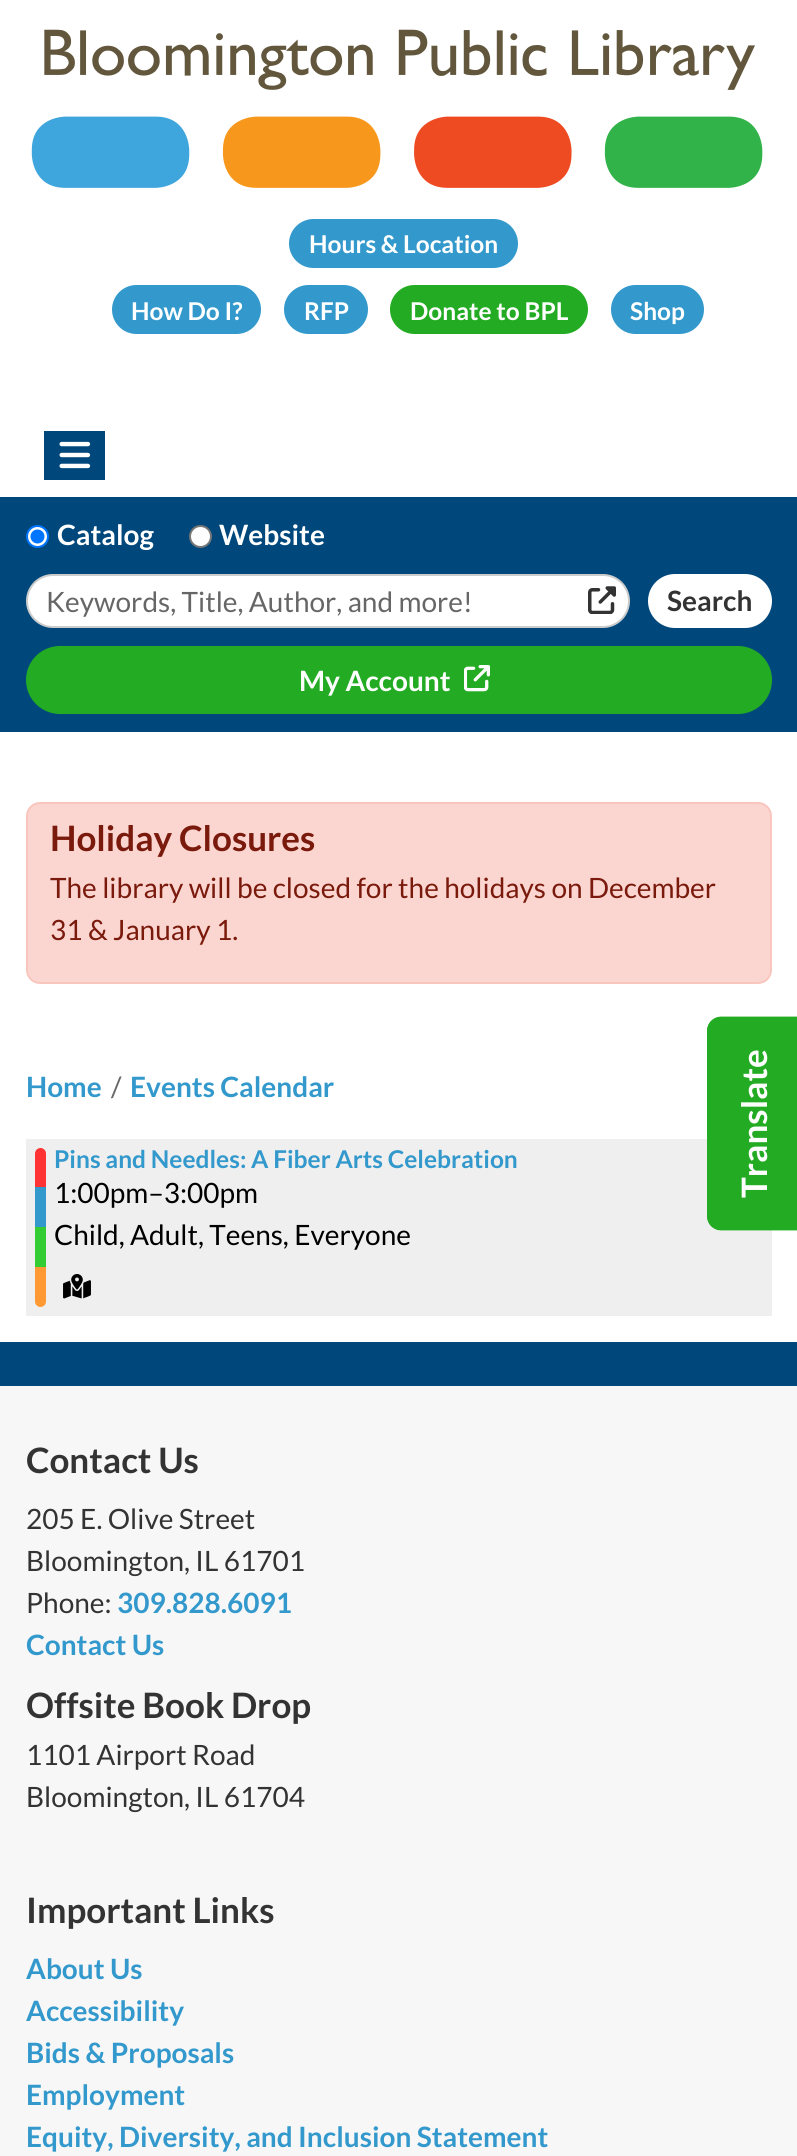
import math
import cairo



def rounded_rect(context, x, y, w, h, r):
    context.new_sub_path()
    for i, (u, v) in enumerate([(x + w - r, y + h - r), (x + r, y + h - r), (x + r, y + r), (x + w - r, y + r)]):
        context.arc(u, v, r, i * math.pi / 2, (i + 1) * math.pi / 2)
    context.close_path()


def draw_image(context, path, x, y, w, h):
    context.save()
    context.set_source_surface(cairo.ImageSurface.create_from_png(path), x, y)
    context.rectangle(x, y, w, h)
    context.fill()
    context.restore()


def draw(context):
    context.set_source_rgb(1, 1, 1)
    context.paint()
    draw_image(context, "images/1.png", 31, 29, 732, 159)
    context.set_source_rgb(51 / 255, 153 / 255, 204 / 255)
    rounded_rect(context, 290, 220, 227, 47, 23.5)
    context.fill_preserve()
    context.stroke()
    rounded_rect(context, 113, 286, 147, 47, 23.5)
    context.fill_preserve()
    context.stroke()
    rounded_rect(context, 285, 286, 82, 47, 23.5)
    context.fill_preserve()
    context.stroke()
    context.set_source_rgb(35 / 255, 172 / 255, 35 / 255)
    rounded_rect(context, 391, 286, 196, 47, 23.5)
    context.fill_preserve()
    context.stroke()
    context.set_source_rgb(51 / 255, 153 / 255, 204 / 255)
    rounded_rect(context, 612, 286, 91, 47, 23.5)
    context.fill_preserve()
    context.stroke()
    context.set_source_rgb(0, 72 / 255, 124 / 255)
    context.rectangle(44, 431, 61, 49)
    context.fill()
    draw_image(context, "images/2.png", 59, 441, 32, 28)
    context.rectangle(0, 497, 797, 235)
    context.fill()
    context.set_source_rgb(1, 1, 1)
    context.arc(37.5, 536.5, 10.5, 0, 2 * math.pi)
    context.fill_preserve()
    context.set_source_rgb(0, 117 / 255, 1)
    context.stroke()
    context.arc(37.5, 536.5, 7, 0, 2 * math.pi)
    context.fill()
    context.set_source_rgb(1, 1, 1)
    context.arc(200.5, 536.5, 10.5, 0, 2 * math.pi)
    context.fill_preserve()
    context.set_source_rgb(118 / 255, 118 / 255, 118 / 255)
    context.stroke()
    context.set_source_rgb(1, 1, 1)
    rounded_rect(context, 27, 575, 602, 52, 26)
    context.fill_preserve()
    context.set_source_rgb(204 / 255, 204 / 255, 204 / 255)
    context.stroke()
    draw_image(context, "images/3.png", 588, 586, 28, 28)
    context.set_source_rgb(1, 1, 1)
    rounded_rect(context, 649, 575, 122, 52, 26)
    context.fill_preserve()
    context.stroke()
    context.set_source_rgb(35 / 255, 172 / 255, 35 / 255)
    rounded_rect(context, 27, 647, 744, 66, 33)
    context.fill_preserve()
    context.stroke()
    draw_image(context, "images/4.png", 464, 665, 26, 27)
    context.set_source_rgb(251 / 255, 214 / 255, 209 / 255)
    rounded_rect(context, 27, 803, 744, 180, 13)
    context.fill_preserve()
    context.set_source_rgb(249 / 255, 198 / 255, 190 / 255)
    context.stroke()
    context.set_source_rgb(239 / 255, 239 / 255, 239 / 255)
    context.rectangle(26, 1139, 746, 177)
    context.fill()
    context.set_source_rgb(1, 51 / 255, 51 / 255)
    context.new_path()
    context.move_to(40.5, 1148)
    context.curve_to(43.5, 1148, 46, 1150.5, 46, 1153.5)
    context.line_to(46, 1187)
    context.line_to(35, 1187)
    context.line_to(35, 1153.5)
    context.curve_to(35, 1150.5, 37.5, 1148, 40.5, 1148)
    context.close_path()
    context.fill()
    context.set_source_rgb(51 / 255, 153 / 255, 204 / 255)
    context.rectangle(35, 1187, 11, 40)
    context.fill()
    context.set_source_rgb(51 / 255, 204 / 255, 51 / 255)
    context.rectangle(35, 1227, 11, 40)
    context.fill()
    context.set_source_rgb(1, 153 / 255, 51 / 255)
    context.new_path()
    context.move_to(35, 1267)
    context.line_to(46, 1267)
    context.line_to(46, 1301.5)
    context.curve_to(46, 1304.5, 43.5, 1307, 40.5, 1307)
    context.curve_to(37.5, 1307, 35, 1304.5, 35, 1301.5)
    context.close_path()
    context.fill()
    draw_image(context, "images/5.png", 63, 1274, 28, 25)
    context.set_source_rgb(247 / 255, 247 / 255, 248 / 255)
    context.rectangle(0, 1386, 797, 770)
    context.fill()
    context.set_source_rgb(0, 72 / 255, 124 / 255)
    context.rectangle(0, 1342, 797, 44)
    context.fill()
    context.set_source_rgb(35 / 255, 172 / 255, 35 / 255)
    context.new_path()
    context.move_to(707, 1216)
    context.line_to(707, 1031)
    context.curve_to(707, 1023, 713, 1017, 721, 1017)
    context.line_to(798, 1017)
    context.line_to(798, 1230)
    context.line_to(721, 1230)
    context.curve_to(713, 1230, 707, 1224, 707, 1216)
    context.close_path()
    context.fill()
    context.new_path()
    context.move_to(708, 1216)
    context.line_to(708, 1031)
    context.curve_to(708, 1023.5, 714, 1017.5, 721, 1017.5)
    context.line_to(797, 1017.5)
    context.line_to(797, 1229.5)
    context.line_to(721, 1229.5)
    context.curve_to(714, 1229.5, 708, 1223.5, 708, 1216)
    context.close_path()
    context.set_line_width(1.8)
    context.stroke()
    context.select_font_face("Lato", cairo.FontSlant.NORMAL, cairo.FontWeight.BOLD)
    context.set_font_size(24.5)
    context.set_source_rgb(1, 1, 1)
    context.move_to(309, 253)
    context.show_text("Hours & Location")
    context.move_to(131, 320)
    context.show_text("How Do I?")
    context.move_to(304, 320)
    context.show_text("RFP")
    context.move_to(410, 320)
    context.show_text("Donate to BPL")
    context.move_to(630, 320)
    context.show_text("Shop")
    context.set_font_size(28)
    context.move_to(57, 545)
    context.show_text("Catalog")
    context.move_to(219, 545)
    context.show_text("Website")
    context.select_font_face("Lato")
    context.set_source_rgb(102 / 255, 102 / 255, 102 / 255)
    context.move_to(46, 612)
    context.show_text("Keywords, Title, Author, and more!")
    context.select_font_face("Lato", cairo.FontSlant.NORMAL, cairo.FontWeight.BOLD)
    context.set_source_rgb(51 / 255, 51 / 255, 51 / 255)
    context.move_to(667, 611)
    context.show_text("Search")
    context.set_source_rgb(1, 1, 1)
    context.move_to(299, 691)
    context.show_text("My Account")
    context.set_font_size(35)
    context.set_source_rgb(122 / 255, 26 / 255, 12 / 255)
    context.move_to(50, 851)
    context.show_text("Holiday Closures")
    context.select_font_face("Lato")
    context.set_font_size(28)
    context.move_to(50, 898)
    context.show_text("The library will be closed for the holidays on December")
    context.move_to(50, 940)
    context.show_text("31 & January 1.")
    context.select_font_face("Lato", cairo.FontSlant.NORMAL, cairo.FontWeight.BOLD)
    context.set_source_rgb(51 / 255, 153 / 255, 204 / 255)
    context.move_to(26, 1097)
    context.show_text("Home")
    context.select_font_face("Lato")
    context.set_source_rgb(102 / 255, 102 / 255, 102 / 255)
    context.move_to(111, 1097)
    context.show_text("/")
    context.select_font_face("Lato", cairo.FontSlant.NORMAL, cairo.FontWeight.BOLD)
    context.set_source_rgb(51 / 255, 153 / 255, 204 / 255)
    context.move_to(130, 1097)
    context.show_text("Events Calendar")
    context.set_font_size(24.5)
    context.move_to(54, 1168)
    context.show_text("Pins and Needles: A Fiber Arts Celebration")
    context.select_font_face("Lato")
    context.set_font_size(28)
    context.set_source_rgb(0, 0, 0)
    context.move_to(54, 1203)
    context.show_text("1:00pm–3:00pm")
    context.move_to(54, 1245)
    context.show_text("Child, Adult, Teens, Everyone")
    context.select_font_face("Lato", cairo.FontSlant.NORMAL, cairo.FontWeight.BOLD)
    context.set_font_size(35)
    context.set_source_rgb(1, 1, 1)
    context.save()
    context.translate(767, 1198)
    context.rotate(-90 * math.pi / 180)
    context.move_to(0, 0)
    context.show_text("Translate")
    context.restore()
    context.set_source_rgb(51 / 255, 51 / 255, 51 / 255)
    context.move_to(26, 1473)
    context.show_text("Contact Us")
    context.select_font_face("Lato")
    context.set_font_size(28)
    context.move_to(26, 1529)
    context.show_text("205 E. Olive Street")
    context.move_to(26, 1571)
    context.show_text("Bloomington, IL 61701")
    context.move_to(26, 1613)
    context.show_text("Phone:")
    context.select_font_face("Lato", cairo.FontSlant.NORMAL, cairo.FontWeight.BOLD)
    context.set_source_rgb(51 / 255, 153 / 255, 204 / 255)
    context.move_to(117, 1613)
    context.show_text("309.828.6091")
    context.move_to(26, 1655)
    context.show_text("Contact Us")
    context.set_font_size(35)
    context.set_source_rgb(51 / 255, 51 / 255, 51 / 255)
    context.move_to(26, 1718)
    context.show_text("Offsite Book Drop")
    context.select_font_face("Lato")
    context.set_font_size(28)
    context.move_to(26, 1765)
    context.show_text("1101 Airport Road")
    context.move_to(26, 1807)
    context.show_text("Bloomington, IL 61704")
    context.select_font_face("Lato", cairo.FontSlant.NORMAL, cairo.FontWeight.BOLD)
    context.set_font_size(35)
    context.move_to(26, 1923)
    context.show_text("Important Links")
    context.set_font_size(28)
    context.set_source_rgb(51 / 255, 153 / 255, 204 / 255)
    context.move_to(26, 1979)
    context.show_text("About Us")
    context.move_to(26, 2021)
    context.show_text("Accessibility")
    context.move_to(26, 2063)
    context.show_text("Bids & Proposals")
    context.move_to(26, 2105)
    context.show_text("Employment")
    context.move_to(26, 2147)
    context.show_text("Equity, Diversity, and Inclusion Statement")


surface = cairo.ImageSurface(cairo.Format.RGB24, 797, 2156)
context = cairo.Context(surface)
options = cairo.FontOptions()
options.set_hint_metrics(cairo.HintMetrics.OFF)
options.set_hint_style(cairo.HintStyle.NONE)
context.set_font_options(options)
context.set_miter_limit(4)
draw(context)
surface.write_to_png("out.png")
